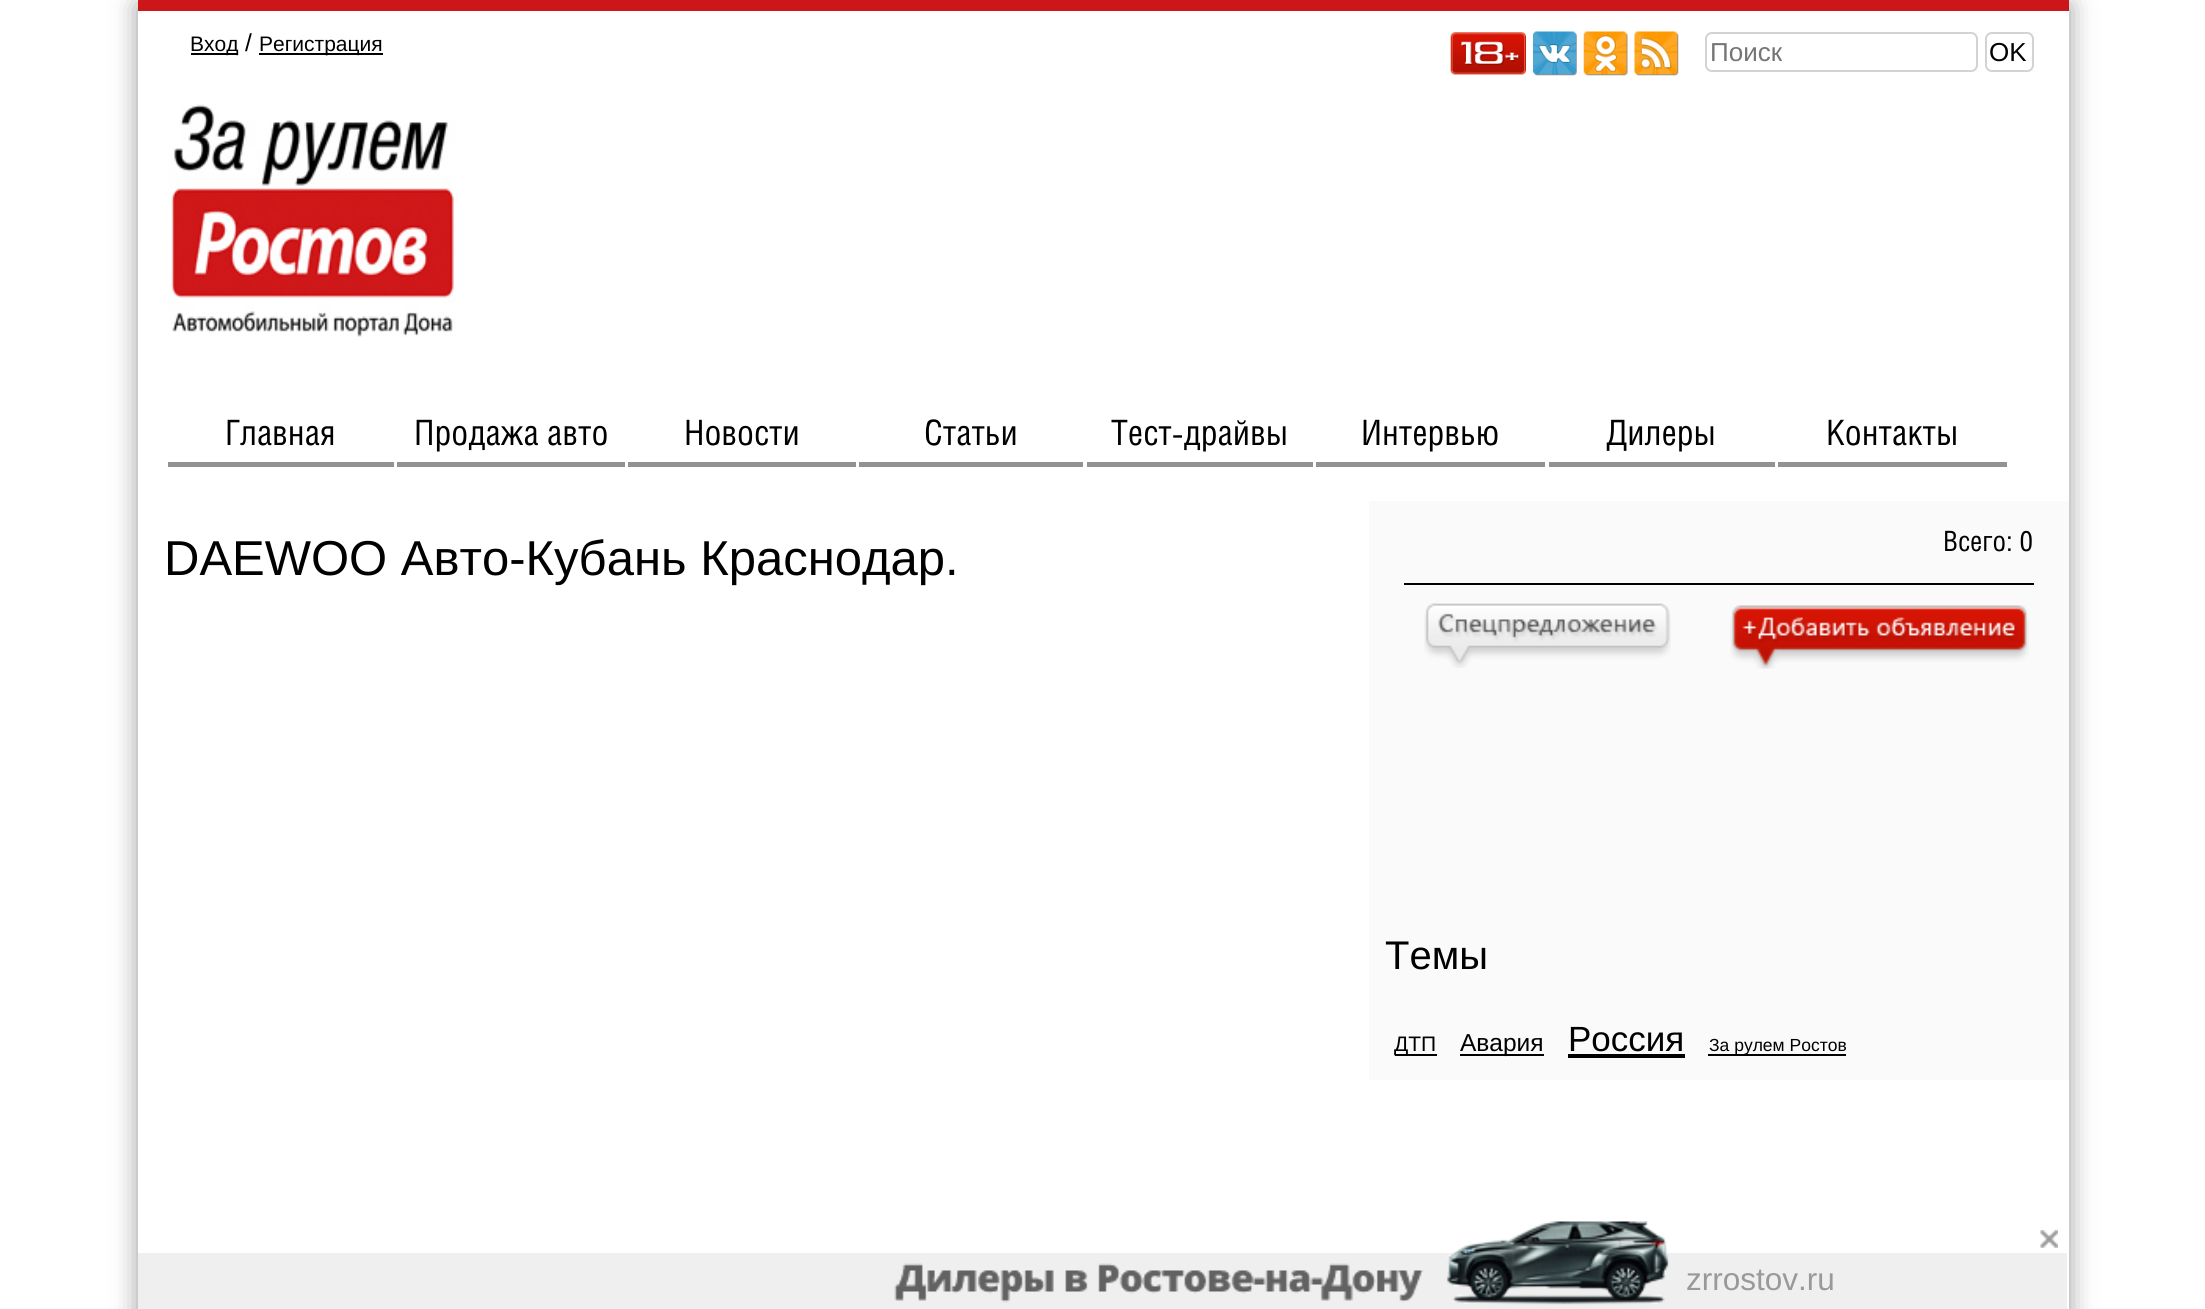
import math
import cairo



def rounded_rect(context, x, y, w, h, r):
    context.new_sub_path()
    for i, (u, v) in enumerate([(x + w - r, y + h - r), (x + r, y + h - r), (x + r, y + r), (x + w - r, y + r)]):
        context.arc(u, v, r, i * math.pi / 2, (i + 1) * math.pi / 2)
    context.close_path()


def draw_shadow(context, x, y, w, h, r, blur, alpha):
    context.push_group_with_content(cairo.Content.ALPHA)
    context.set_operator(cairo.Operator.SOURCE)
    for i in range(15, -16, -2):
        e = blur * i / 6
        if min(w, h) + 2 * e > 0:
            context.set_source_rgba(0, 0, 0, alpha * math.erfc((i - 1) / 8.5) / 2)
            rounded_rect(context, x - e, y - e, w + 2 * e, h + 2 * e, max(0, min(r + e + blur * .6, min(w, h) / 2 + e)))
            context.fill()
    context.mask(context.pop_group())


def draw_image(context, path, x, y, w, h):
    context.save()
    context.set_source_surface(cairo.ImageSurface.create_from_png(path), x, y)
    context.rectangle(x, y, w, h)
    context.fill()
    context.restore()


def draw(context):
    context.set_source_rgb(1, 1, 1)
    context.paint()
    context.set_source_rgb(0, 0, 0)
    draw_shadow(context, 138, 5, 1931, 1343, 0, 13, 0.4)
    context.set_source_rgb(1, 1, 1)
    context.rectangle(138, 11, 1931, 1298)
    context.fill()
    context.set_source_rgb(205 / 255, 22 / 255, 26 / 255)
    context.rectangle(138, 0, 1931, 11)
    context.fill()
    context.set_source_rgb(0, 0, 0)
    context.rectangle(191, 53, 47, 2)
    context.fill()
    context.rectangle(259, 53, 124, 2)
    context.fill()
    draw_image(context, "images/1.png", 1450, 32, 76, 43)
    draw_image(context, "images/2.png", 1533, 31, 44, 45)
    draw_image(context, "images/3.png", 1583, 31, 45, 45)
    draw_image(context, "images/4.png", 1634, 31, 45, 45)
    rounded_rect(context, 1706, 33, 271, 38, 6)
    context.set_source_rgb(211 / 255, 211 / 255, 211 / 255)
    context.stroke()
    rounded_rect(context, 1986, 33, 47, 38, 6)
    context.stroke()
    draw_image(context, "images/5.png", 168, 104, 289, 233)
    context.set_source_rgb(146 / 255, 146 / 255, 146 / 255)
    context.rectangle(168, 462, 226, 5)
    context.fill()
    context.rectangle(397, 462, 228, 5)
    context.fill()
    context.rectangle(628, 462, 228, 5)
    context.fill()
    context.rectangle(859, 462, 224, 5)
    context.fill()
    context.rectangle(1087, 462, 226, 5)
    context.fill()
    context.rectangle(1316, 462, 229, 5)
    context.fill()
    context.rectangle(1549, 462, 226, 5)
    context.fill()
    context.rectangle(1778, 462, 229, 5)
    context.fill()
    context.set_source_rgb(250 / 255, 250 / 255, 250 / 255)
    context.rectangle(1369, 501, 700, 579)
    context.fill()
    context.set_source_rgb(0, 0, 0)
    context.rectangle(1404, 583, 630, 2)
    context.fill()
    draw_image(context, "images/6.png", 1424, 603, 247, 65)
    draw_image(context, "images/7.png", 1730, 605, 299, 64)
    context.rectangle(1395, 1054, 42, 2)
    context.fill()
    context.rectangle(1460, 1054, 84, 2)
    context.fill()
    context.rectangle(1568, 1054, 117, 4)
    context.fill()
    context.rectangle(1708, 1054, 138, 2)
    context.fill()
    draw_image(context, "images/8.png", 2040, 1230, 18, 18)
    context.set_source_rgb(239 / 255, 239 / 255, 239 / 255)
    context.rectangle(138, 1253, 1929, 56)
    context.fill()
    draw_image(context, "images/9.png", 894, 1221, 775, 84)
    context.select_font_face("Liberation Sans")
    context.set_font_size(21)
    context.set_source_rgb(0, 0, 0)
    context.move_to(190, 51)
    context.show_text("Вход")
    context.set_font_size(24.5)
    context.move_to(245, 51)
    context.show_text("/")
    context.set_font_size(21)
    context.move_to(259, 51)
    context.show_text("Регистрация")
    context.set_font_size(26)
    context.set_source_rgb(117 / 255, 117 / 255, 117 / 255)
    context.move_to(1710, 61)
    context.show_text("Поиск")
    context.set_source_rgb(0, 0, 0)
    context.move_to(1989, 61)
    context.show_text("OK")
    context.select_font_face("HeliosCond")
    context.set_font_size(35)
    context.move_to(225, 445)
    context.show_text("Главная")
    context.move_to(414, 445)
    context.show_text("Продажа авто")
    context.move_to(684, 445)
    context.show_text("Новости")
    context.move_to(924, 445)
    context.show_text("Статьи")
    context.move_to(1111, 445)
    context.show_text("Тест-драйвы")
    context.move_to(1361, 445)
    context.show_text("Интервью")
    context.move_to(1606, 445)
    context.show_text("Дилеры")
    context.move_to(1826, 445)
    context.show_text("Контакты")
    context.select_font_face("Liberation Sans")
    context.set_font_size(49)
    context.move_to(164, 575)
    context.show_text("DAEWOO Авто-Кубань Краснодар.")
    context.select_font_face("HeliosCond")
    context.set_font_size(28)
    context.move_to(1943, 551)
    context.show_text("Всего: 0")
    context.select_font_face("Liberation Sans")
    context.set_font_size(40)
    context.move_to(1385, 969)
    context.show_text("Темы")
    context.set_font_size(21)
    context.move_to(1394, 1051)
    context.show_text("ДТП")
    context.set_font_size(24.5)
    context.move_to(1460, 1051)
    context.show_text("Авария")
    context.set_font_size(35)
    context.move_to(1568, 1051)
    context.show_text("Россия")
    context.set_font_size(17.5)
    context.move_to(1709, 1051)
    context.show_text("За рулем Ростов")
    context.set_font_size(31.5)
    context.set_source_rgb(153 / 255, 153 / 255, 153 / 255)
    context.move_to(1686, 1290)
    context.show_text("zrrostov.ru")


surface = cairo.ImageSurface(cairo.Format.RGB24, 2205, 1309)
context = cairo.Context(surface)
options = cairo.FontOptions()
options.set_hint_metrics(cairo.HintMetrics.OFF)
options.set_hint_style(cairo.HintStyle.NONE)
context.set_font_options(options)
context.set_miter_limit(4)
draw(context)
surface.write_to_png("out.png")
